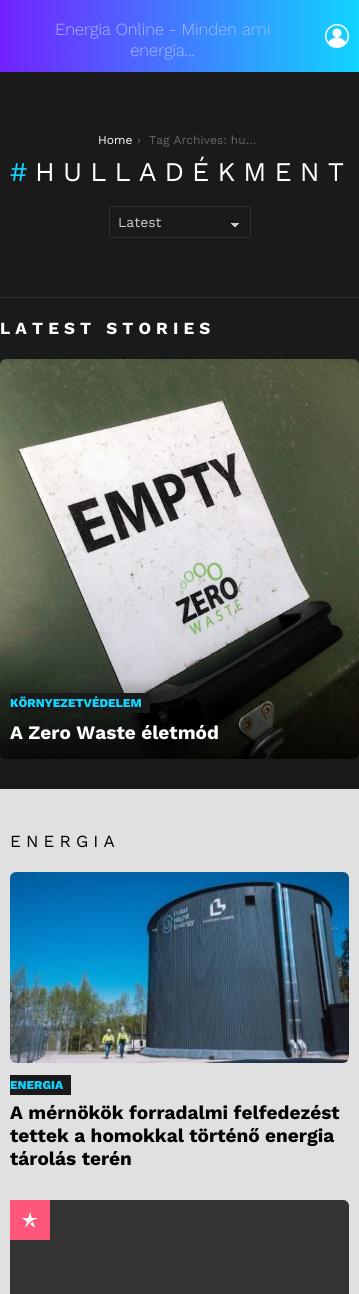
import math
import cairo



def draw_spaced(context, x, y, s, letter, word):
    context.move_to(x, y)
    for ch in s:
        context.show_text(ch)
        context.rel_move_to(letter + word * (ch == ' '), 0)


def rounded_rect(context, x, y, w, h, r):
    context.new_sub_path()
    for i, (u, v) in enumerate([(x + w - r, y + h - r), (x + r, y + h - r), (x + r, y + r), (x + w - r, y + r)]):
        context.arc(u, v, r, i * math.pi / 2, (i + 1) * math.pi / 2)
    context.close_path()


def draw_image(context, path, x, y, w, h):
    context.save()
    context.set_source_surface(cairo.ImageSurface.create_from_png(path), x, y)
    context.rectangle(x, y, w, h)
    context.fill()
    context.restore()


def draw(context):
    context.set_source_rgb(26 / 255, 26 / 255, 26 / 255)
    context.paint()
    gradient = cairo.LinearGradient(0, 36, 359, 36)
    gradient.add_color_stop_rgba(0, 114 / 255, 34 / 255, 1, 1)
    gradient.add_color_stop_rgba(1, 17 / 255, 213 / 255, 1, 1)
    context.set_source(gradient)
    context.rectangle(0, 0, 359, 72)
    context.fill()
    draw_image(context, "images/1.png", 325, 24, 24, 24)
    gradient = cairo.LinearGradient(235, 223, 240, 227)
    gradient.add_color_stop_rgba(0.5, 204 / 255, 204 / 255, 204 / 255, 1)
    gradient.add_color_stop_rgba(0.5, 26 / 255, 26 / 255, 26 / 255, 1)
    context.set_source(gradient)
    context.rectangle(235, 223, 5, 4)
    context.fill()
    gradient = cairo.LinearGradient(230, 227, 235, 223)
    gradient.add_color_stop_rgba(0.5, 26 / 255, 26 / 255, 26 / 255, 1)
    gradient.add_color_stop_rgba(0.5, 204 / 255, 204 / 255, 204 / 255, 1)
    context.set_source(gradient)
    context.rectangle(230, 223, 5, 4)
    context.fill()
    rounded_rect(context, 109.5, 206.5, 141, 31, 3.5)
    context.set_source_rgb(51 / 255, 51 / 255, 51 / 255)
    context.set_line_width(1)
    context.stroke()
    context.rectangle(0, 297, 359, 1)
    context.fill()
    rounded_rect(context, 0, 359, 359, 400, 6)
    context.fill()
    draw_image(context, "images/2.png", 0, 359, 359, 400)
    gradient = cairo.LinearGradient(180, 678, 180, 759)
    gradient.add_color_stop_rgba(0, 0, 0, 0, 0)
    gradient.add_color_stop_rgba(1, 0, 0, 0, 0.75)
    context.set_source(gradient)
    context.new_path()
    context.move_to(0, 678)
    context.line_to(359, 678)
    context.line_to(359, 753)
    context.curve_to(359, 756.5, 356.5, 759, 353, 759)
    context.line_to(6, 759)
    context.curve_to(2.5, 759, 0, 756.5, 0, 753)
    context.close_path()
    context.fill()
    context.set_source_rgb(26 / 255, 26 / 255, 26 / 255)
    context.rectangle(10, 693, 140, 20)
    context.fill()
    context.set_source_rgb(224 / 255, 224 / 255, 224 / 255)
    context.rectangle(0, 789, 359, 505)
    context.fill()
    draw_image(context, "images/3.png", 10, 872, 339, 191)
    context.set_source_rgb(26 / 255, 26 / 255, 26 / 255)
    context.rectangle(10, 1075, 61, 20)
    context.fill()
    context.set_source_rgb(51 / 255, 51 / 255, 51 / 255)
    rounded_rect(context, 10, 1200, 339, 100, 6)
    context.fill()
    context.set_source_rgb(1, 87 / 255, 123 / 255)
    context.rectangle(10, 1200, 40, 40)
    context.fill()
    draw_image(context, "images/4.png", 22, 1212, 16, 16)
    context.select_font_face("Work Sans Light")
    context.set_font_size(17)
    context.set_source_rgb(163 / 255, 184 / 255, 1)
    draw_spaced(context, 55, 35, "Energia Online - Minden ami", -0.4, 0)
    draw_spaced(context, 130, 56, "energia...", -0.4, 0)
    context.select_font_face("Work Sans")
    context.set_font_size(12)
    context.set_source_rgb(1, 1, 1)
    context.move_to(98, 144)
    context.show_text("Home")
    context.set_source_rgb(102 / 255, 102 / 255, 102 / 255)
    context.move_to(137, 144)
    context.show_text("›")
    context.move_to(149, 144)
    context.show_text("Tag Archives: hu…")
    context.set_font_size(27)
    context.set_source_rgb(17 / 255, 213 / 255, 1)
    draw_spaced(context, 10, 181, "#", 8.1, 0)
    context.set_source_rgb(1, 1, 1)
    draw_spaced(context, 35, 181, "HULLADÉKMENT", 8.1, 0)
    context.set_font_size(14)
    context.set_source_rgb(204 / 255, 204 / 255, 204 / 255)
    context.move_to(118, 227)
    context.show_text("Latest")
    context.select_font_face("Work Sans", cairo.FontSlant.NORMAL, cairo.FontWeight.BOLD)
    context.set_font_size(17)
    context.set_source_rgb(1, 1, 1)
    draw_spaced(context, 0, 334, "LATEST STORIES", 5.1, 0)
    context.select_font_face("Work Sans ExtraBold")
    context.set_font_size(12)
    context.set_source_rgb(17 / 255, 213 / 255, 1)
    context.move_to(10, 707)
    context.show_text("KÖRNYEZETVÉDELEM")
    context.select_font_face("Work Sans", cairo.FontSlant.NORMAL, cairo.FontWeight.BOLD)
    context.set_font_size(19)
    context.set_source_rgb(1, 1, 1)
    context.move_to(10, 739)
    context.show_text("A Zero Waste életmód")
    context.select_font_face("Work Sans")
    context.set_font_size(17)
    context.set_source_rgb(0, 0, 0)
    draw_spaced(context, 10, 847, "ENERGIA", 5.1, 0)
    context.select_font_face("Work Sans ExtraBold")
    context.set_font_size(12)
    context.set_source_rgb(17 / 255, 213 / 255, 1)
    context.move_to(10, 1089)
    context.show_text("ENERGIA")
    context.select_font_face("Work Sans", cairo.FontSlant.NORMAL, cairo.FontWeight.BOLD)
    context.set_font_size(19)
    context.set_source_rgb(0, 0, 0)
    context.move_to(10, 1119)
    context.show_text("A mérnökök forradalmi felfedezést")
    context.move_to(10, 1142)
    context.show_text("tettek a homokkal történő energia")
    context.move_to(10, 1165)
    context.show_text("tárolás terén")


surface = cairo.ImageSurface(cairo.Format.RGB24, 359, 1294)
context = cairo.Context(surface)
options = cairo.FontOptions()
options.set_hint_metrics(cairo.HintMetrics.OFF)
options.set_hint_style(cairo.HintStyle.NONE)
context.set_font_options(options)
context.set_miter_limit(4)
draw(context)
surface.write_to_png("out.png")
